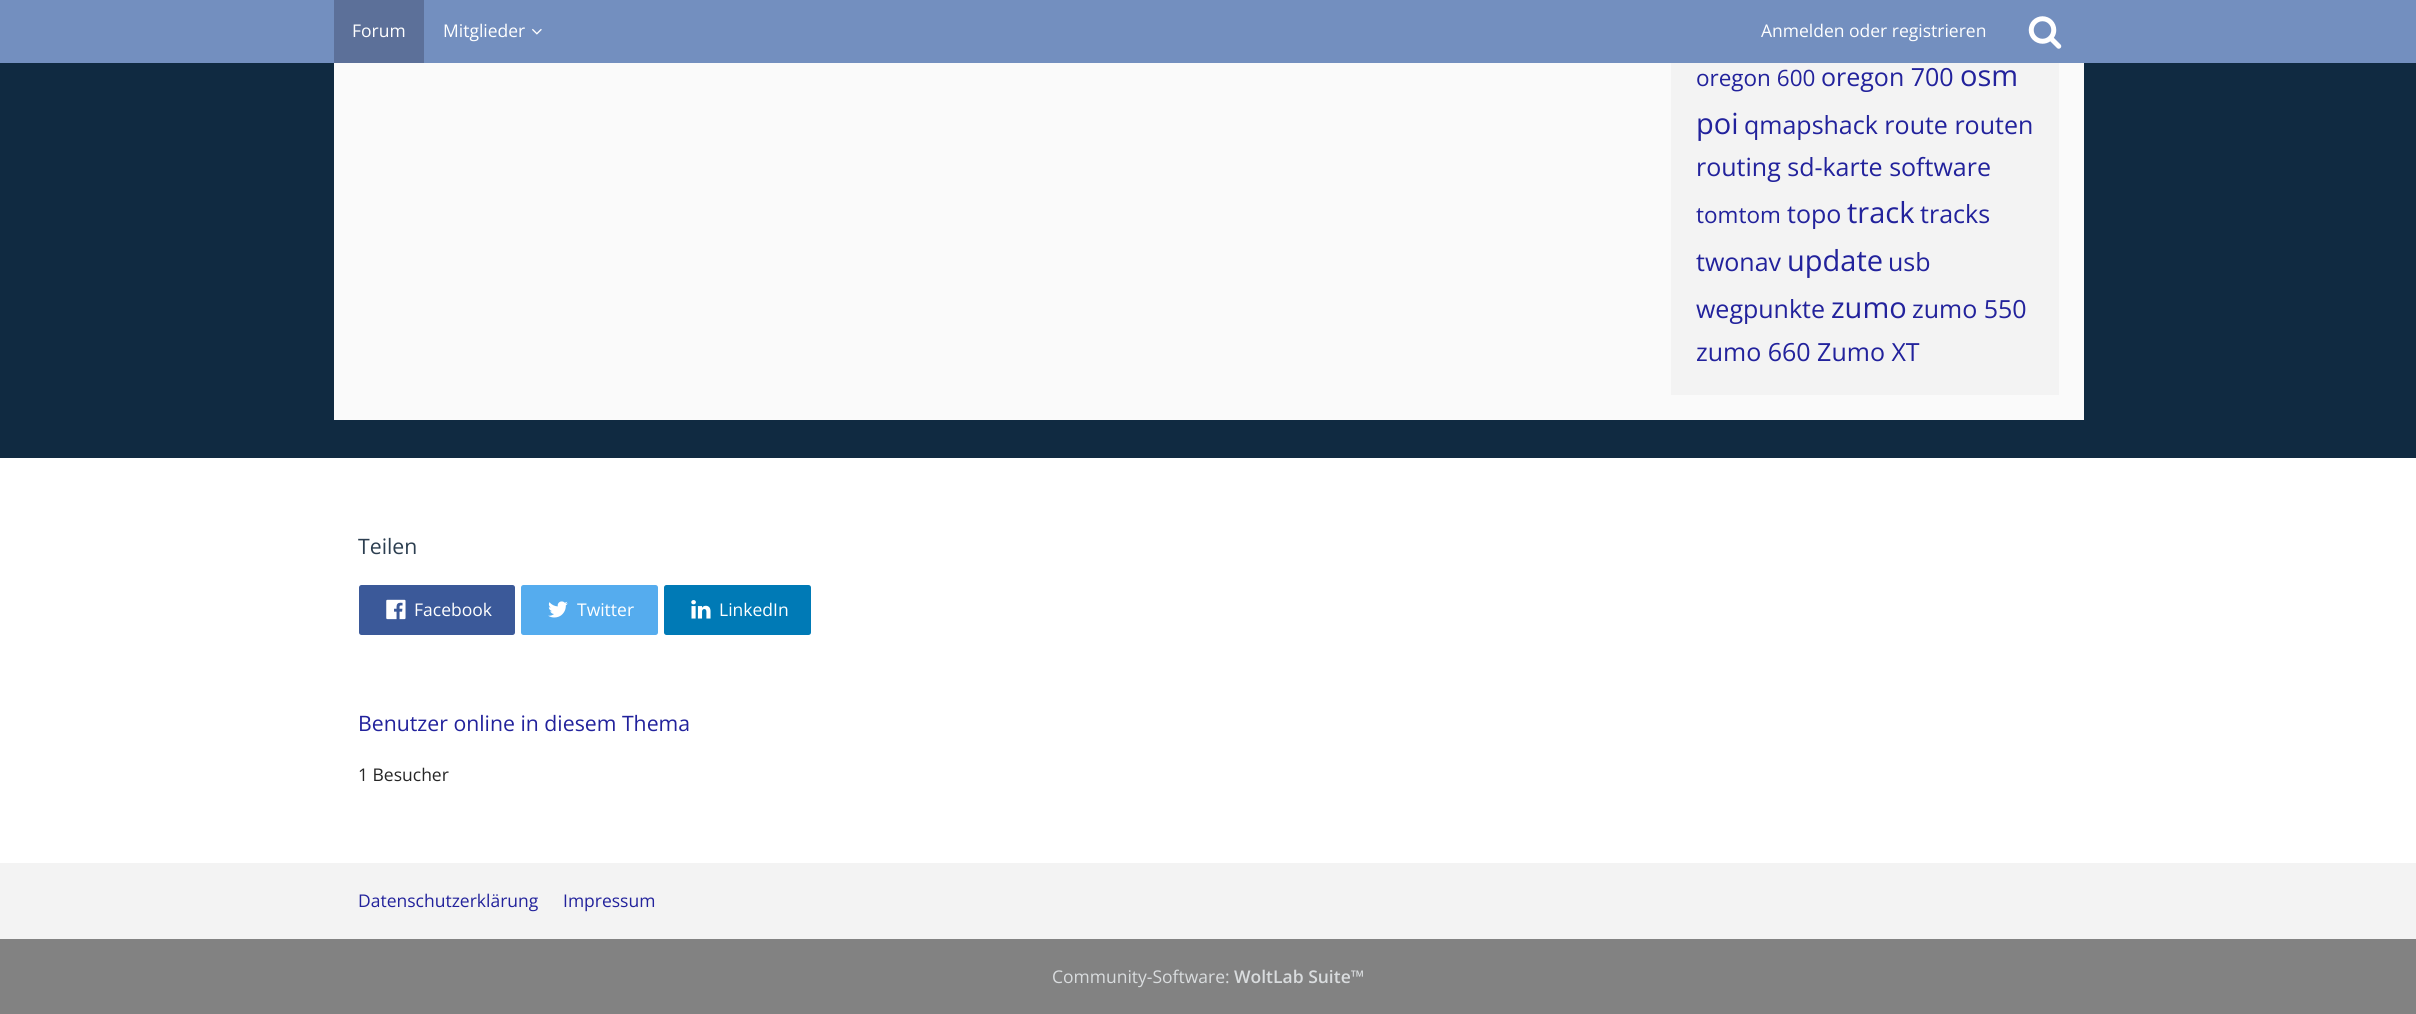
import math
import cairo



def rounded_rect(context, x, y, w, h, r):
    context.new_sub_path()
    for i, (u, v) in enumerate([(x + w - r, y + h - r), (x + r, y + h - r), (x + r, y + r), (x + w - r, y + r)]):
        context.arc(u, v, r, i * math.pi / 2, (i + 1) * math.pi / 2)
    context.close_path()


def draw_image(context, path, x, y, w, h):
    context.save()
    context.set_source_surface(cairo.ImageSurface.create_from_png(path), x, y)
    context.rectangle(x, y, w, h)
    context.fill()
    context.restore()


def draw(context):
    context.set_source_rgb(16 / 255, 42 / 255, 65 / 255)
    context.paint()
    context.set_source_rgb(115 / 255, 143 / 255, 191 / 255)
    context.rectangle(0, 0, 2416, 63)
    context.fill()
    context.set_source_rgb(92 / 255, 112 / 255, 153 / 255)
    context.rectangle(334, 0, 90, 63)
    context.fill()
    draw_image(context, "images/1.png", 532, 28, 10, 7)
    draw_image(context, "images/2.png", 2028, 16, 34, 33)
    context.set_source_rgb(250 / 255, 250 / 255, 250 / 255)
    context.rectangle(334, 63, 1750, 357)
    context.fill()
    context.set_source_rgb(243 / 255, 243 / 255, 243 / 255)
    context.rectangle(1671, 63, 388, 332)
    context.fill()
    context.set_source_rgb(1, 1, 1)
    context.rectangle(0, 458, 2416, 405)
    context.fill()
    context.set_source_rgb(59 / 255, 89 / 255, 153 / 255)
    rounded_rect(context, 359, 585, 156, 50, 2.5)
    context.fill()
    draw_image(context, "images/3.png", 386, 599, 20, 21)
    context.set_source_rgb(85 / 255, 172 / 255, 238 / 255)
    rounded_rect(context, 521, 585, 137, 50, 2.5)
    context.fill()
    draw_image(context, "images/4.png", 548, 601, 20, 17)
    context.set_source_rgb(0, 122 / 255, 182 / 255)
    rounded_rect(context, 664, 585, 147, 50, 2.5)
    context.fill()
    draw_image(context, "images/5.png", 691, 600, 20, 19)
    context.set_source_rgb(243 / 255, 243 / 255, 243 / 255)
    context.rectangle(0, 863, 2416, 76)
    context.fill()
    context.set_source_rgb(130 / 255, 130 / 255, 130 / 255)
    context.rectangle(0, 939, 2416, 75)
    context.fill()
    context.select_font_face("Open Sans")
    context.set_font_size(17.5)
    context.set_source_rgb(1, 1, 1)
    context.move_to(352, 37)
    context.show_text("Forum")
    context.move_to(443, 37)
    context.show_text("Mitglieder")
    context.move_to(1761, 37)
    context.show_text("Anmelden oder registrieren")
    context.set_font_size(22.5)
    context.set_source_rgb(34 / 255, 34 / 255, 156 / 255)
    context.move_to(1696, 86)
    context.show_text("oregon 600")
    context.set_font_size(25)
    context.move_to(1821, 86)
    context.show_text("oregon 700")
    context.set_font_size(29)
    context.move_to(1960, 86)
    context.show_text("osm")
    context.move_to(1696, 134)
    context.show_text("poi")
    context.set_font_size(25)
    context.move_to(1744, 134)
    context.show_text("qmapshack route routen")
    context.move_to(1696, 176)
    context.show_text("routing sd-karte software")
    context.set_font_size(22.5)
    context.move_to(1696, 223)
    context.show_text("tomtom")
    context.set_font_size(25)
    context.move_to(1787, 223)
    context.show_text("topo")
    context.set_font_size(29)
    context.move_to(1847, 223)
    context.show_text("track")
    context.set_font_size(25)
    context.move_to(1920, 223)
    context.show_text("tracks")
    context.move_to(1696, 271)
    context.show_text("twonav")
    context.set_font_size(29)
    context.move_to(1787, 271)
    context.show_text("update")
    context.set_font_size(25)
    context.move_to(1888, 271)
    context.show_text("usb")
    context.move_to(1696, 318)
    context.show_text("wegpunkte")
    context.set_font_size(29)
    context.move_to(1831, 318)
    context.show_text("zumo")
    context.set_font_size(25)
    context.move_to(1912, 318)
    context.show_text("zumo 550")
    context.move_to(1696, 361)
    context.show_text("zumo 660 Zumo XT")
    context.set_font_size(21.25)
    context.set_source_rgb(44 / 255, 62 / 255, 80 / 255)
    context.move_to(358, 554)
    context.show_text("Teilen")
    context.set_font_size(17.5)
    context.set_source_rgb(1, 1, 1)
    context.move_to(414, 616)
    context.show_text("Facebook")
    context.move_to(577, 616)
    context.show_text("Twitter")
    context.move_to(719, 616)
    context.show_text("LinkedIn")
    context.set_font_size(21.25)
    context.set_source_rgb(34 / 255, 34 / 255, 156 / 255)
    context.move_to(358, 731)
    context.show_text("Benutzer online in diesem Thema")
    context.set_font_size(17.5)
    context.set_source_rgb(38 / 255, 38 / 255, 38 / 255)
    context.move_to(358, 781)
    context.show_text("1 Besucher")
    context.set_source_rgb(34 / 255, 34 / 255, 156 / 255)
    context.move_to(358, 907)
    context.show_text("Datenschutzerklärung")
    context.move_to(563, 907)
    context.show_text("Impressum")
    context.set_source_rgb(217 / 255, 220 / 255, 222 / 255)
    context.move_to(1052, 983)
    context.show_text("Community-Software:")
    context.select_font_face("Open Sans SemiBold")
    context.move_to(1234, 983)
    context.show_text("WoltLab Suite™")


surface = cairo.ImageSurface(cairo.Format.RGB24, 2416, 1014)
context = cairo.Context(surface)
options = cairo.FontOptions()
options.set_hint_metrics(cairo.HintMetrics.OFF)
options.set_hint_style(cairo.HintStyle.NONE)
context.set_font_options(options)
context.set_miter_limit(4)
draw(context)
surface.write_to_png("out.png")
